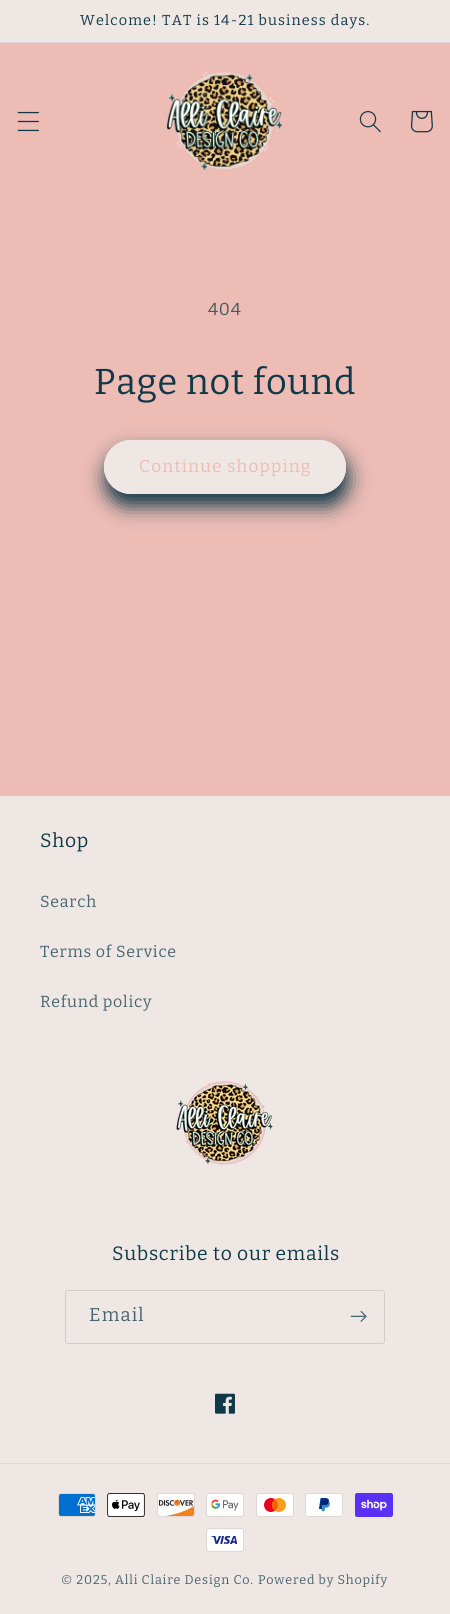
import math
import cairo



def draw_spaced(context, x, y, s, letter, word):
    context.move_to(x, y)
    for ch in s:
        context.show_text(ch)
        context.rel_move_to(letter + word * (ch == ' '), 0)


def rounded_rect(context, x, y, w, h, r):
    context.new_sub_path()
    for i, (u, v) in enumerate([(x + w - r, y + h - r), (x + r, y + h - r), (x + r, y + r), (x + w - r, y + r)]):
        context.arc(u, v, r, i * math.pi / 2, (i + 1) * math.pi / 2)
    context.close_path()


def draw_shadow(context, x, y, w, h, r, blur, alpha):
    context.push_group_with_content(cairo.Content.ALPHA)
    context.set_operator(cairo.Operator.SOURCE)
    for i in range(15, -16, -2):
        e = blur * i / 6
        if min(w, h) + 2 * e > 0:
            context.set_source_rgba(0, 0, 0, alpha * math.erfc((i - 1) / 8.5) / 2)
            rounded_rect(context, x - e, y - e, w + 2 * e, h + 2 * e, max(0, min(r + e + blur * .6, min(w, h) / 2 + e)))
            context.fill()
    context.mask(context.pop_group())


def draw_image(context, path, x, y, w, h):
    context.save()
    context.set_source_surface(cairo.ImageSurface.create_from_png(path), x, y)
    context.rectangle(x, y, w, h)
    context.fill()
    context.restore()


def draw(context):
    context.set_source_rgb(236 / 255, 188 / 255, 181 / 255)
    context.paint()
    context.set_source_rgb(239 / 255, 231 / 255, 227 / 255)
    context.rectangle(0, 0, 450, 42)
    context.fill()
    context.set_source_rgb(221 / 255, 217 / 255, 215 / 255)
    context.rectangle(0, 42, 450, 1)
    context.fill()
    draw_image(context, "images/1.png", 17, 111, 22, 21)
    draw_image(context, "images/2.png", 167, 70, 116, 102)
    draw_image(context, "images/3.png", 359, 111, 22, 22)
    draw_image(context, "images/4.png", 410, 110, 23, 23)
    context.set_source_rgb(16 / 255, 57 / 255, 72 / 255)
    draw_shadow(context, 106, 452, 242, 54, 27, 10, 1)
    context.set_source_rgb(239 / 255, 231 / 255, 227 / 255)
    rounded_rect(context, 104, 440, 242, 54, 27)
    context.fill()
    rounded_rect(context, 104.5, 440.5, 241, 53, 26.5)
    context.set_line_width(1)
    context.stroke()
    context.rectangle(0, 796, 450, 818)
    context.fill()
    draw_image(context, "images/5.png", 176, 1081, 97, 84)
    rounded_rect(context, 65.5, 1290.5, 319, 53, 2.5)
    context.set_source_rgba(16 / 255, 57 / 255, 72 / 255, 0.15)
    context.stroke()
    draw_image(context, "images/6.png", 350, 1310, 17, 12)
    draw_image(context, "images/7.png", 215, 1393, 20, 21)
    context.set_source_rgb(221 / 255, 217 / 255, 215 / 255)
    context.rectangle(0, 1463, 450, 1)
    context.fill()
    draw_image(context, "images/8.png", 58, 1493, 38, 24)
    draw_image(context, "images/9.png", 107, 1493, 38, 24)
    draw_image(context, "images/10.png", 157, 1493, 38, 24)
    draw_image(context, "images/11.png", 206, 1493, 38, 24)
    draw_image(context, "images/12.png", 256, 1493, 38, 24)
    draw_image(context, "images/13.png", 305, 1493, 38, 24)
    draw_image(context, "images/14.png", 355, 1493, 38, 24)
    draw_image(context, "images/15.png", 206, 1528, 38, 24)
    context.select_font_face("Bitter")
    context.set_font_size(14.4)
    context.set_source_rgb(16 / 255, 57 / 255, 72 / 255)
    draw_spaced(context, 80, 25, "Welcome! TAT is 14-21 business days.", 1.15, 0)
    context.set_font_size(17.25)
    context.set_source_rgb(71 / 255, 90 / 255, 99 / 255)
    draw_spaced(context, 208, 315, "404", 0.75, 0)
    context.set_font_size(36)
    context.set_source_rgb(16 / 255, 57 / 255, 72 / 255)
    draw_spaced(context, 94, 394, "Page not found", 0.75, 0)
    context.set_font_size(17.25)
    context.set_source_rgb(236 / 255, 188 / 255, 181 / 255)
    draw_spaced(context, 139, 472, "Continue shopping", 1.15, 0)
    context.set_font_size(19.25)
    context.set_source_rgb(16 / 255, 57 / 255, 72 / 255)
    draw_spaced(context, 40, 847, "Shop", 0.75, 0)
    context.set_font_size(16)
    context.set_source_rgb(72 / 255, 101 / 255, 111 / 255)
    draw_spaced(context, 40, 907, "Search", 0.75, 0)
    draw_spaced(context, 40, 957, "Terms of Service", 0.75, 0)
    draw_spaced(context, 40, 1007, "Refund policy", 0.75, 0)
    context.set_font_size(19.25)
    context.set_source_rgb(16 / 255, 57 / 255, 72 / 255)
    draw_spaced(context, 112, 1260, "Subscribe to our emails", 0.75, 0)
    context.set_font_size(18.5)
    context.set_source_rgb(72 / 255, 101 / 255, 111 / 255)
    draw_spaced(context, 89, 1321, "Email", 1.15, 0)
    context.set_font_size(12.6)
    draw_spaced(context, 61, 1584, "© 2025, Alli Claire Design Co.", 0.8, 0)
    draw_spaced(context, 258, 1584, "Powered by Shopify", 0.8, 0)


surface = cairo.ImageSurface(cairo.Format.RGB24, 450, 1614)
context = cairo.Context(surface)
options = cairo.FontOptions()
options.set_hint_metrics(cairo.HintMetrics.OFF)
options.set_hint_style(cairo.HintStyle.NONE)
context.set_font_options(options)
context.set_miter_limit(4)
draw(context)
surface.write_to_png("out.png")
